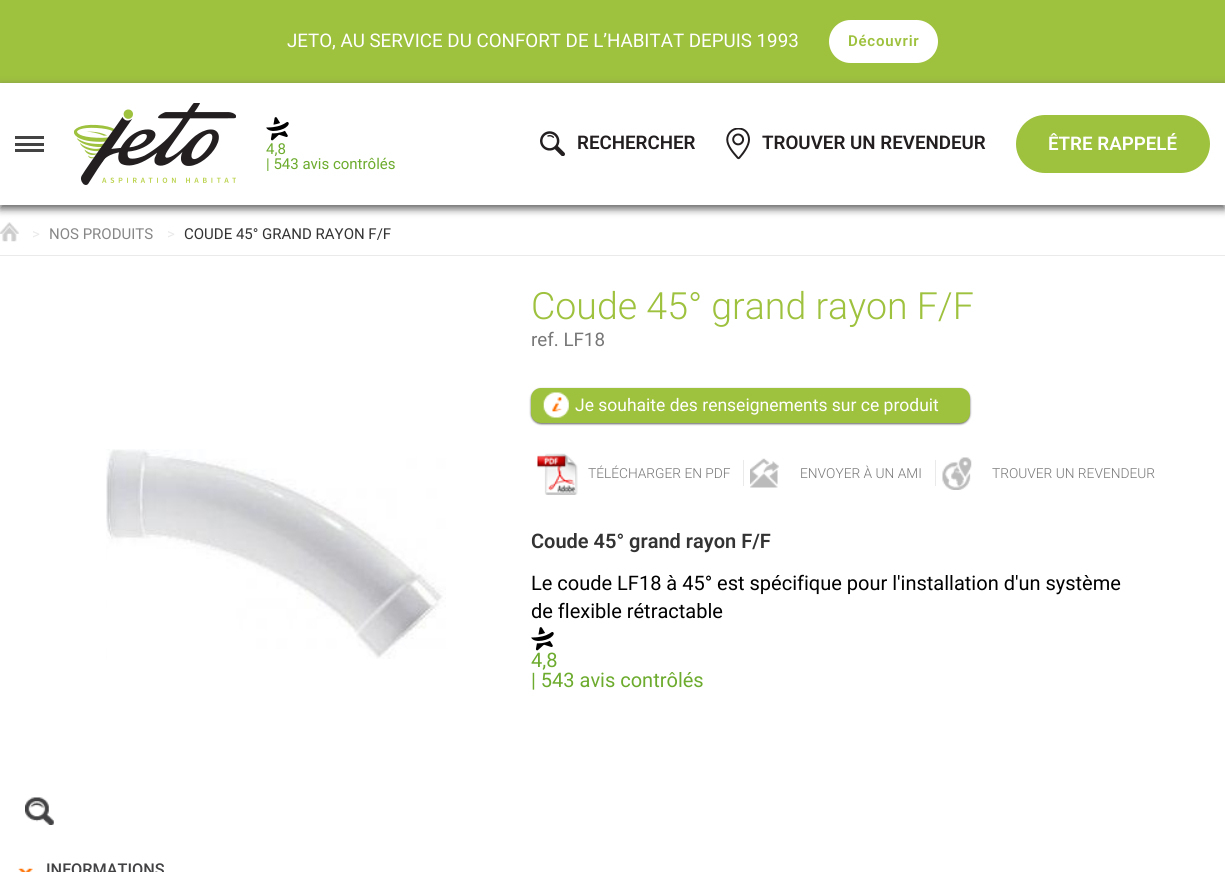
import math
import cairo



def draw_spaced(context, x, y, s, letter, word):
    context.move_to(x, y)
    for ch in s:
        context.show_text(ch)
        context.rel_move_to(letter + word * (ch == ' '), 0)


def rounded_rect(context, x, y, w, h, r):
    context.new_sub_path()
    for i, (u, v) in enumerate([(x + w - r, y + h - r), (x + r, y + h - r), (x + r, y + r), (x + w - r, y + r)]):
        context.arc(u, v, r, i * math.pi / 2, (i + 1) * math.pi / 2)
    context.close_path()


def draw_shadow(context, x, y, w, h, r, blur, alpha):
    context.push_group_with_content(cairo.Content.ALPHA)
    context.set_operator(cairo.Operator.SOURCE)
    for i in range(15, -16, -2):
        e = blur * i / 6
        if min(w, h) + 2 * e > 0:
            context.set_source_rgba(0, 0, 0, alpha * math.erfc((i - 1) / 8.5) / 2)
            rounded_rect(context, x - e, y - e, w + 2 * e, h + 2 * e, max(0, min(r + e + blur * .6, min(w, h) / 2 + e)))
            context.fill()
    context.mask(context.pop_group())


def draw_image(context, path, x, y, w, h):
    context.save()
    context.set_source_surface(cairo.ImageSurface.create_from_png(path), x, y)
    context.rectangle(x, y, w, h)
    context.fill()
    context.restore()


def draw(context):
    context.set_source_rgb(1, 1, 1)
    context.paint()
    context.set_source_rgb(158 / 255, 193 / 255, 62 / 255)
    context.rectangle(0, 0, 1225, 83)
    context.fill()
    context.set_source_rgb(1, 1, 1)
    rounded_rect(context, 829, 20, 109, 43, 21.5)
    context.fill()
    context.save()
    context.set_fill_rule(cairo.FillRule.EVEN_ODD)
    context.new_path()
    context.move_to(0, 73)
    context.line_to(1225, 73)
    context.line_to(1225, 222)
    context.line_to(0, 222)
    context.close_path()
    context.move_to(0, 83)
    context.line_to(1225, 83)
    context.line_to(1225, 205)
    context.line_to(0, 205)
    context.close_path()
    context.clip()
    context.set_source_rgb(101 / 255, 101 / 255, 101 / 255)
    draw_shadow(context, 0, 86, 1225, 123, 0, 4, 1)
    context.restore()
    context.set_source_rgb(67 / 255, 67 / 255, 67 / 255)
    context.rectangle(15, 136, 29, 3)
    context.fill()
    context.rectangle(15, 149, 29, 3)
    context.fill()
    context.rectangle(15, 143, 29, 3)
    context.fill()
    draw_image(context, "images/1.png", 74, 103, 162, 82)
    draw_image(context, "images/2.png", 266, 117, 23, 24)
    draw_image(context, "images/3.png", 540, 131, 25, 25)
    draw_image(context, "images/4.png", 726, 128, 24, 32)
    context.set_source_rgb(158 / 255, 193 / 255, 62 / 255)
    rounded_rect(context, 1016, 115, 194, 58, 29)
    context.fill()
    context.set_source_rgb(234 / 255, 234 / 255, 234 / 255)
    context.rectangle(0, 255, 1225, 1)
    context.fill()
    draw_image(context, "images/5.png", 0, 222, 19, 20)
    draw_image(context, "images/6.png", 106, 449, 340, 210)
    draw_image(context, "images/7.png", 25, 797, 29, 28)
    context.set_source_rgb(101 / 255, 101 / 255, 101 / 255)
    draw_shadow(context, 531, 389, 439, 35, 10, 1, 1)
    context.set_source_rgb(158 / 255, 193 / 255, 62 / 255)
    rounded_rect(context, 531, 388, 439, 35, 10)
    context.fill()
    draw_image(context, "images/8.png", 543, 392, 26, 26)
    draw_image(context, "images/9.png", 537, 453, 41, 42)
    context.set_source_rgb(234 / 255, 234 / 255, 234 / 255)
    context.rectangle(743, 460, 1, 26)
    context.fill()
    draw_image(context, "images/10.png", 750, 458, 29, 30)
    context.rectangle(935, 460, 1, 26)
    context.fill()
    draw_image(context, "images/11.png", 942, 457, 30, 33)
    draw_image(context, "images/2.png", 531, 627, 23, 24)
    draw_image(context, "images/12.png", 18, 868, 15, 4)
    context.select_font_face("Roboto")
    context.set_font_size(18.75)
    context.set_source_rgb(1, 1, 1)
    context.move_to(287, 47)
    context.show_text("JETO, AU SERVICE DU CONFORT DE L’HABITAT DEPUIS 1993")
    context.select_font_face("Roboto SemiBold")
    context.set_font_size(15)
    context.set_source_rgb(158 / 255, 193 / 255, 62 / 255)
    draw_spaced(context, 848, 46, "Découvrir", 0.75, 0)
    context.select_font_face("Roboto")
    context.set_source_rgb(108 / 255, 171 / 255, 45 / 255)
    context.move_to(266, 154)
    context.show_text("4,8")
    context.move_to(266, 169)
    context.show_text("| 543 avis contrôlés")
    context.select_font_face("Roboto SemiBold")
    context.set_font_size(18.75)
    context.set_source_rgb(35 / 255, 31 / 255, 32 / 255)
    context.move_to(577, 149)
    context.show_text("RECHERCHER")
    context.move_to(762, 149)
    context.show_text("TROUVER UN REVENDEUR")
    context.set_source_rgb(1, 1, 1)
    context.move_to(1048, 150)
    context.show_text("ÊTRE RAPPELÉ")
    context.select_font_face("Roboto")
    context.set_font_size(15)
    context.set_source_rgb(234 / 255, 234 / 255, 234 / 255)
    context.move_to(32, 239)
    context.show_text(">")
    context.set_source_rgb(135 / 255, 135 / 255, 135 / 255)
    context.move_to(49, 239)
    context.show_text("NOS PRODUITS")
    context.set_source_rgb(234 / 255, 234 / 255, 234 / 255)
    context.move_to(167, 239)
    context.show_text(">")
    context.set_source_rgb(51 / 255, 51 / 255, 51 / 255)
    context.move_to(184, 239)
    context.show_text("COUDE 45° GRAND RAYON F/F")
    context.select_font_face("Roboto Light")
    context.set_font_size(37.5)
    context.set_source_rgb(158 / 255, 193 / 255, 62 / 255)
    context.move_to(531, 319)
    context.show_text("Coude 45° grand rayon F/F")
    context.select_font_face("Roboto")
    context.set_font_size(18.75)
    context.set_source_rgb(119 / 255, 119 / 255, 119 / 255)
    context.move_to(531, 346)
    context.show_text("ref. LF18")
    context.set_font_size(17.5)
    context.set_source_rgb(1, 1, 1)
    context.move_to(575, 411)
    context.show_text("Je souhaite des renseignements sur ce produit")
    context.select_font_face("Roboto Light")
    context.set_font_size(13.75)
    context.set_source_rgb(119 / 255, 119 / 255, 119 / 255)
    context.move_to(588, 478)
    context.show_text("TÉLÉCHARGER EN PDF")
    context.move_to(800, 478)
    context.show_text("ENVOYER À UN AMI")
    context.move_to(992, 478)
    context.show_text("TROUVER UN REVENDEUR")
    context.select_font_face("Roboto SemiBold")
    context.set_font_size(20)
    context.set_source_rgb(51 / 255, 51 / 255, 51 / 255)
    context.move_to(531, 548)
    context.show_text("Coude 45° grand rayon F/F")
    context.select_font_face("Roboto")
    context.set_source_rgb(0, 0, 0)
    context.move_to(531, 590)
    context.show_text("Le coude LF18 à 45° est spécifique pour l'installation d'un système")
    context.move_to(531, 618)
    context.show_text("de flexible rétractable")
    context.set_source_rgb(108 / 255, 171 / 255, 45 / 255)
    context.move_to(531, 667)
    context.show_text("4,8")
    context.move_to(531, 687)
    context.show_text("| 543 avis contrôlés")
    context.select_font_face("Roboto Medium")
    context.set_font_size(16.25)
    context.set_source_rgb(66 / 255, 66 / 255, 68 / 255)
    context.move_to(46, 875)
    context.show_text("INFORMATIONS")


surface = cairo.ImageSurface(cairo.Format.RGB24, 1225, 872)
context = cairo.Context(surface)
options = cairo.FontOptions()
options.set_hint_metrics(cairo.HintMetrics.OFF)
options.set_hint_style(cairo.HintStyle.NONE)
context.set_font_options(options)
context.set_miter_limit(4)
draw(context)
surface.write_to_png("out.png")
